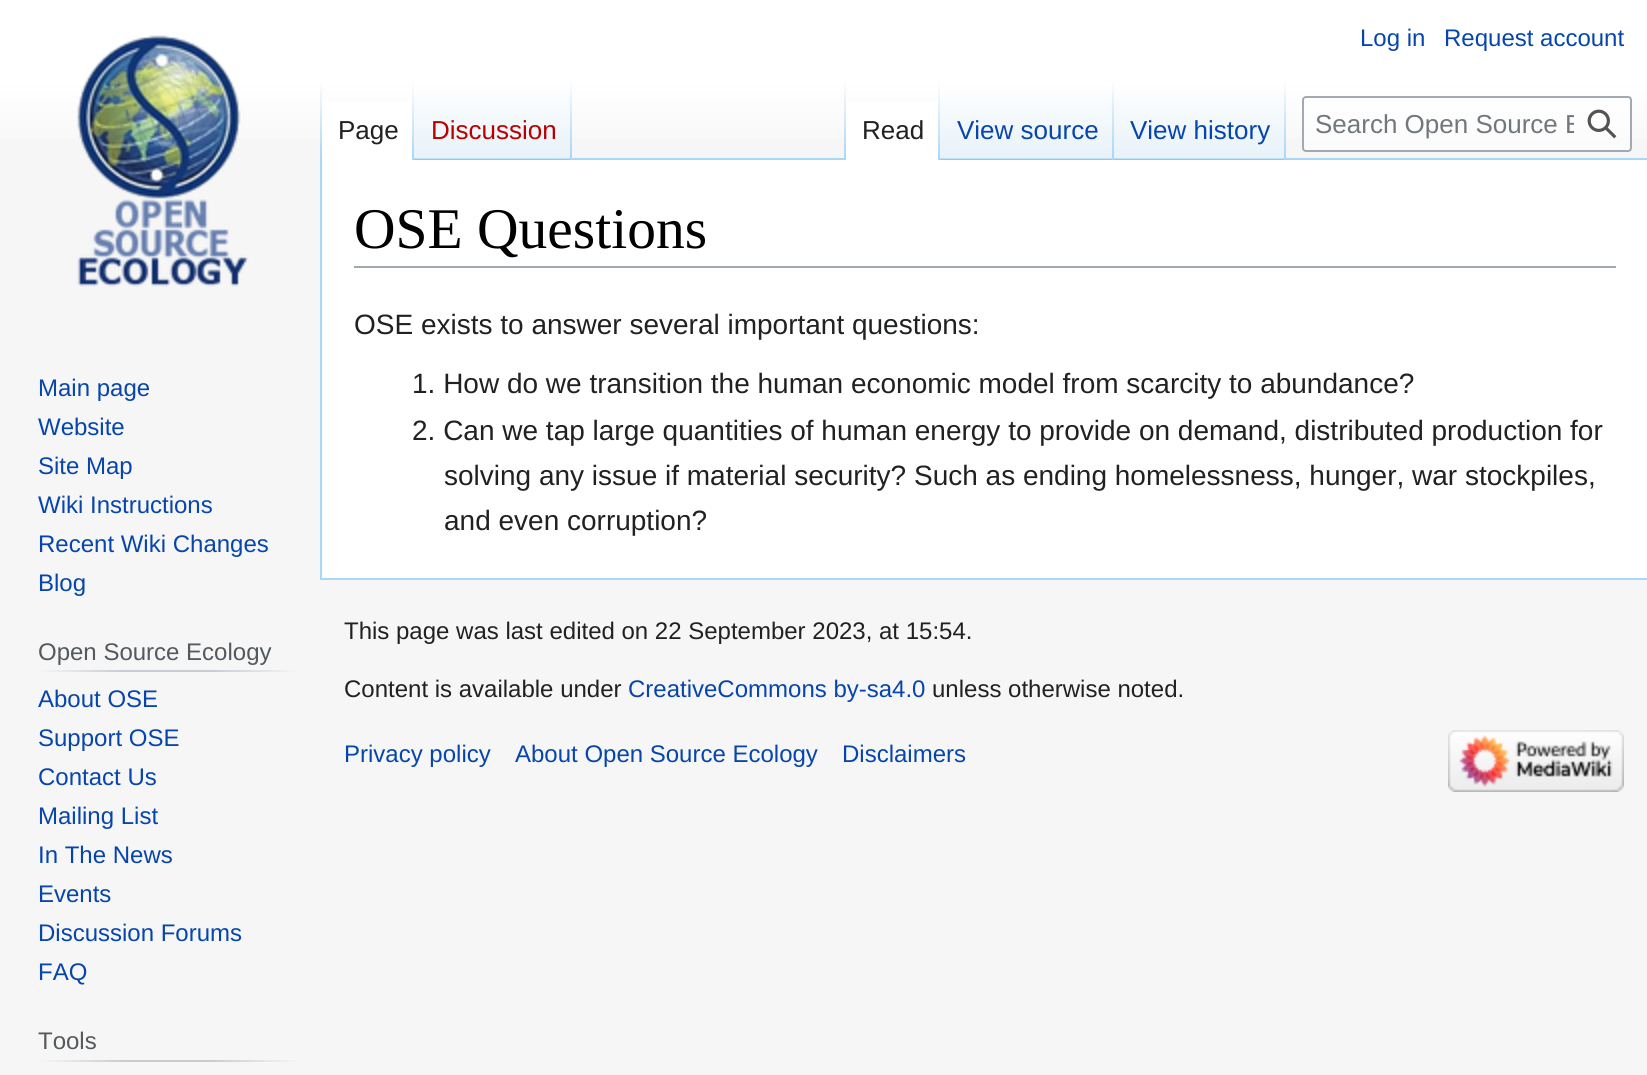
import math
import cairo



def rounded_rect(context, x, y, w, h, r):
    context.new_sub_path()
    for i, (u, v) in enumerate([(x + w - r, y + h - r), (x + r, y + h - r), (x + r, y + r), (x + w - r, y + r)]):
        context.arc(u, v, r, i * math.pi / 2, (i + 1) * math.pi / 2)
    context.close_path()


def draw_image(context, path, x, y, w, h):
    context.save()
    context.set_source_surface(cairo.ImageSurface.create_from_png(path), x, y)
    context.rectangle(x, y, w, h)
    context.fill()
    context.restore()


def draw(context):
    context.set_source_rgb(246 / 255, 246 / 255, 246 / 255)
    context.paint()
    gradient = cairo.LinearGradient(824, 0, 824, 160)
    gradient.add_color_stop_rgba(0.5, 1, 1, 1, 1)
    gradient.add_color_stop_rgba(1, 246 / 255, 246 / 255, 246 / 255, 1)
    context.set_source(gradient)
    context.rectangle(0, 0, 1647, 138)
    context.fill()
    context.set_source_rgb(167 / 255, 215 / 255, 249 / 255)
    context.rectangle(320, 578, 1327, 2)
    context.fill()
    context.rectangle(320, 158, 2, 422)
    context.fill()
    gradient = cairo.LinearGradient(321, 80, 321, 160)
    gradient.add_color_stop_rgba(0, 167 / 255, 215 / 255, 249 / 255, 0)
    gradient.add_color_stop_rgba(1, 167 / 255, 215 / 255, 249 / 255, 1)
    context.set_source(gradient)
    context.rectangle(320, 80, 2, 80)
    context.fill()
    context.set_source_rgb(1, 1, 1)
    context.rectangle(322, 102, 90, 58)
    context.fill()
    gradient = cairo.LinearGradient(413, 80, 413, 160)
    gradient.add_color_stop_rgba(0, 1, 1, 1, 1)
    gradient.add_color_stop_rgba(1, 167 / 255, 215 / 255, 249 / 255, 1)
    context.set_source(gradient)
    context.rectangle(412, 80, 2, 80)
    context.fill()
    gradient = cairo.LinearGradient(493, 160, 493, 80)
    gradient.add_color_stop_rgba(0, 119 / 255, 193 / 255, 246 / 255, 1)
    gradient.add_color_stop_rgba(0.03, 232 / 255, 242 / 255, 248 / 255, 1)
    gradient.add_color_stop_rgba(1, 1, 1, 1, 1)
    context.set_source(gradient)
    context.rectangle(414, 92, 158, 68)
    context.fill()
    gradient = cairo.LinearGradient(571, 80, 571, 160)
    gradient.add_color_stop_rgba(0, 167 / 255, 215 / 255, 249 / 255, 0)
    gradient.add_color_stop_rgba(1, 167 / 255, 215 / 255, 249 / 255, 1)
    context.set_source(gradient)
    context.rectangle(570, 80, 2, 80)
    context.fill()
    context.set_source_rgb(167 / 255, 215 / 255, 249 / 255)
    context.rectangle(572, 158, 1075, 2)
    context.fill()
    gradient = cairo.LinearGradient(845, 80, 845, 160)
    gradient.add_color_stop_rgba(0, 167 / 255, 215 / 255, 249 / 255, 0)
    gradient.add_color_stop_rgba(1, 167 / 255, 215 / 255, 249 / 255, 1)
    context.set_source(gradient)
    context.rectangle(844, 80, 2, 80)
    context.fill()
    context.set_source_rgb(1, 1, 1)
    context.rectangle(846, 102, 92, 58)
    context.fill()
    gradient = cairo.LinearGradient(939, 80, 939, 160)
    gradient.add_color_stop_rgba(0, 1, 1, 1, 1)
    gradient.add_color_stop_rgba(1, 167 / 255, 215 / 255, 249 / 255, 1)
    context.set_source(gradient)
    context.rectangle(938, 80, 2, 80)
    context.fill()
    gradient = cairo.LinearGradient(1027, 160, 1027, 80)
    gradient.add_color_stop_rgba(0, 119 / 255, 193 / 255, 246 / 255, 1)
    gradient.add_color_stop_rgba(0.03, 232 / 255, 242 / 255, 248 / 255, 1)
    gradient.add_color_stop_rgba(1, 1, 1, 1, 1)
    context.set_source(gradient)
    context.rectangle(940, 92, 174, 68)
    context.fill()
    gradient = cairo.LinearGradient(1113, 80, 1113, 160)
    gradient.add_color_stop_rgba(0, 167 / 255, 215 / 255, 249 / 255, 0)
    gradient.add_color_stop_rgba(1, 167 / 255, 215 / 255, 249 / 255, 1)
    context.set_source(gradient)
    context.rectangle(1112, 80, 2, 80)
    context.fill()
    gradient = cairo.LinearGradient(1200, 160, 1200, 80)
    gradient.add_color_stop_rgba(0, 119 / 255, 193 / 255, 246 / 255, 1)
    gradient.add_color_stop_rgba(0.03, 232 / 255, 242 / 255, 248 / 255, 1)
    gradient.add_color_stop_rgba(1, 1, 1, 1, 1)
    context.set_source(gradient)
    context.rectangle(1114, 92, 172, 68)
    context.fill()
    gradient = cairo.LinearGradient(1285, 80, 1285, 160)
    gradient.add_color_stop_rgba(0, 167 / 255, 215 / 255, 249 / 255, 0)
    gradient.add_color_stop_rgba(1, 167 / 255, 215 / 255, 249 / 255, 1)
    context.set_source(gradient)
    context.rectangle(1284, 80, 2, 80)
    context.fill()
    context.set_source_rgba(1, 1, 1, 0.5)
    rounded_rect(context, 1303, 97, 328, 54, 3)
    context.fill_preserve()
    context.set_source_rgb(162 / 255, 169 / 255, 177 / 255)
    context.stroke()
    draw_image(context, "images/1.png", 1587, 109, 30, 30)
    draw_image(context, "images/2.png", 77, 35, 172, 252)
    gradient = cairo.LinearGradient(38, 671, 300, 671)
    gradient.add_color_stop_rgba(0, 246 / 255, 246 / 255, 246 / 255, 1)
    gradient.add_color_stop_rgba(0.33, 200 / 255, 204 / 255, 209 / 255, 1)
    gradient.add_color_stop_rgba(0.66, 200 / 255, 204 / 255, 209 / 255, 1)
    gradient.add_color_stop_rgba(1, 246 / 255, 246 / 255, 246 / 255, 1)
    context.set_source(gradient)
    context.rectangle(38, 670, 262, 2)
    context.fill()
    gradient = cairo.LinearGradient(38, 1061, 300, 1061)
    gradient.add_color_stop_rgba(0, 246 / 255, 246 / 255, 246 / 255, 1)
    gradient.add_color_stop_rgba(0.33, 200 / 255, 204 / 255, 209 / 255, 1)
    gradient.add_color_stop_rgba(0.66, 200 / 255, 204 / 255, 209 / 255, 1)
    gradient.add_color_stop_rgba(1, 246 / 255, 246 / 255, 246 / 255, 1)
    context.set_source(gradient)
    context.rectangle(38, 1060, 262, 2)
    context.fill()
    context.set_source_rgb(1, 1, 1)
    context.rectangle(322, 160, 1325, 418)
    context.fill()
    context.set_source_rgb(162 / 255, 169 / 255, 177 / 255)
    context.rectangle(354, 266, 1262, 2)
    context.fill()
    draw_image(context, "images/3.png", 1448, 730, 176, 62)
    context.select_font_face("Liberation Sans")
    context.set_font_size(24)
    context.set_source_rgb(6 / 255, 69 / 255, 173 / 255)
    context.move_to(1360, 46)
    context.show_text("Log in")
    context.move_to(1444, 46)
    context.show_text("Request account")
    context.set_font_size(26)
    context.set_source_rgb(32 / 255, 33 / 255, 34 / 255)
    context.move_to(338, 139)
    context.show_text("Page")
    context.set_source_rgb(186 / 255, 0, 0)
    context.move_to(431, 139)
    context.show_text("Discussion")
    context.set_source_rgb(32 / 255, 33 / 255, 34 / 255)
    context.move_to(862, 139)
    context.show_text("Read")
    context.set_source_rgb(6 / 255, 69 / 255, 173 / 255)
    context.move_to(957, 139)
    context.show_text("View source")
    context.move_to(1130, 139)
    context.show_text("View history")
    context.save()
    context.rectangle(1314, 110, 260, 30)
    context.clip()
    context.set_source_rgb(114 / 255, 119 / 255, 125 / 255)
    context.move_to(1315, 133)
    context.show_text("Search Open Source E")
    context.restore()
    context.set_font_size(24)
    context.move_to(38, 396)
    context.show_text("Main page")
    context.move_to(38, 435)
    context.show_text("Website")
    context.move_to(38, 474)
    context.show_text("Site Map")
    context.move_to(38, 513)
    context.show_text("Wiki Instructions")
    context.move_to(38, 552)
    context.show_text("Recent Wiki Changes")
    context.move_to(38, 591)
    context.show_text("Blog")
    context.set_source_rgb(84 / 255, 89 / 255, 93 / 255)
    context.move_to(38, 660)
    context.show_text("Open Source Ecology")
    context.set_source_rgb(6 / 255, 69 / 255, 173 / 255)
    context.move_to(38, 707)
    context.show_text("About OSE")
    context.move_to(38, 746)
    context.show_text("Support OSE")
    context.move_to(38, 785)
    context.show_text("Contact Us")
    context.move_to(38, 824)
    context.show_text("Mailing List")
    context.move_to(38, 863)
    context.show_text("In The News")
    context.move_to(38, 902)
    context.show_text("Events")
    context.move_to(38, 941)
    context.show_text("Discussion Forums")
    context.move_to(38, 980)
    context.show_text("FAQ")
    context.set_source_rgb(84 / 255, 89 / 255, 93 / 255)
    context.move_to(38, 1049)
    context.show_text("Tools")
    context.select_font_face("Liberation Serif")
    context.set_font_size(57.5)
    context.set_source_rgb(0, 0, 0)
    context.move_to(354, 248)
    context.show_text("OSE Questions")
    context.select_font_face("Liberation Sans")
    context.set_font_size(28)
    context.set_source_rgb(32 / 255, 33 / 255, 34 / 255)
    context.move_to(354, 334)
    context.show_text("OSE exists to answer several important questions:")
    context.move_to(412, 393)
    context.show_text("1. How do we transition the human economic model from scarcity to abundance?")
    context.move_to(412, 440)
    context.show_text("2. Can we tap large quantities of human energy to provide on demand, distributed production for")
    context.move_to(444, 485)
    context.show_text("solving any issue if material security? Such as ending homelessness, hunger, war stockpiles,")
    context.move_to(444, 530)
    context.show_text("and even corruption?")
    context.set_font_size(24)
    context.move_to(344, 639)
    context.show_text("This page was last edited on 22 September 2023, at 15:54.")
    context.move_to(344, 697)
    context.show_text("Content is available under")
    context.set_source_rgb(6 / 255, 69 / 255, 173 / 255)
    context.move_to(628, 697)
    context.show_text("CreativeCommons by-sa4.0")
    context.set_source_rgb(32 / 255, 33 / 255, 34 / 255)
    context.move_to(932, 697)
    context.show_text("unless otherwise noted.")
    context.set_source_rgb(6 / 255, 69 / 255, 173 / 255)
    context.move_to(344, 762)
    context.show_text("Privacy policy")
    context.move_to(515, 762)
    context.show_text("About Open Source Ecology")
    context.move_to(842, 762)
    context.show_text("Disclaimers")


surface = cairo.ImageSurface(cairo.Format.RGB24, 1647, 1075)
context = cairo.Context(surface)
options = cairo.FontOptions()
options.set_hint_metrics(cairo.HintMetrics.OFF)
options.set_hint_style(cairo.HintStyle.NONE)
context.set_font_options(options)
context.set_miter_limit(4)
draw(context)
surface.write_to_png("out.png")
